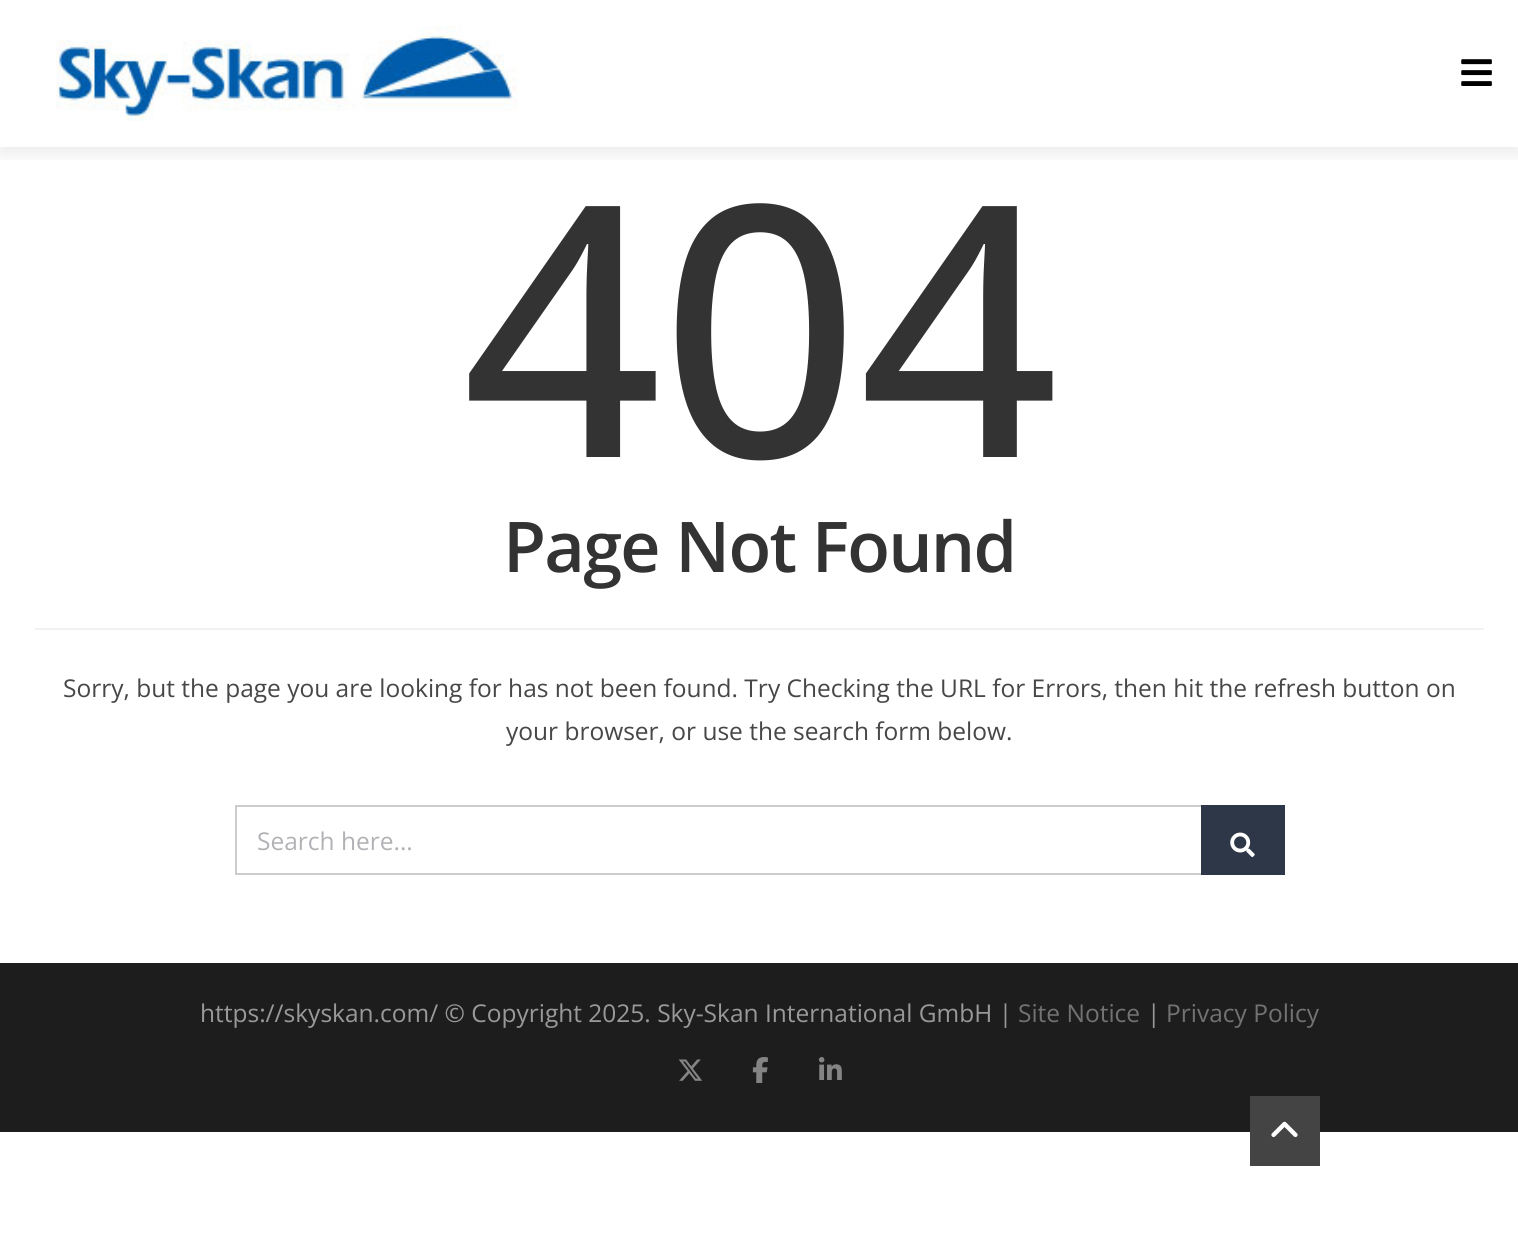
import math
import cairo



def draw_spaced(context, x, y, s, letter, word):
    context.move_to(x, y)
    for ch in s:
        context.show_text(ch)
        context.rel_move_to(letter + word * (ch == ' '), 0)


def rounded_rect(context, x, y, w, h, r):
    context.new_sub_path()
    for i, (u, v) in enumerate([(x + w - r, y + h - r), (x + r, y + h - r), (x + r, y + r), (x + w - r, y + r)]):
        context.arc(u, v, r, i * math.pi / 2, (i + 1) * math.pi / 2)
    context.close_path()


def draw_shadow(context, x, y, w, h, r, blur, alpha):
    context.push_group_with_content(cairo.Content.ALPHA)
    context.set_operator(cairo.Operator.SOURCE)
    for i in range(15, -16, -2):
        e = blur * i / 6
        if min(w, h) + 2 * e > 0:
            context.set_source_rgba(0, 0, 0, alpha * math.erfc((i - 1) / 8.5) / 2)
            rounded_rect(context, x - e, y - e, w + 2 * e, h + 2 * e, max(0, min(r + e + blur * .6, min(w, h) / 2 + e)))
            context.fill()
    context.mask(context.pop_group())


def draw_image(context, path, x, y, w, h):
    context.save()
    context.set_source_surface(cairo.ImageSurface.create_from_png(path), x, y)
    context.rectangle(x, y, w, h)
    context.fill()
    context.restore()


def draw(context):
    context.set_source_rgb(1, 1, 1)
    context.paint()
    context.save()
    context.rectangle(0, 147, 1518, 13)
    context.clip()
    context.set_source_rgb(0, 0, 0)
    draw_shadow(context, 0, 7, 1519, 147, 0, 9, 0.08)
    context.restore()
    draw_image(context, "images/1.png", 55, 26, 463, 95)
    draw_image(context, "images/2.png", 1461, 59, 31, 27)
    context.set_source_rgb(242 / 255, 242 / 255, 242 / 255)
    context.rectangle(35, 628, 1449, 2)
    context.fill()
    context.rectangle(236, 806, 1048, 68)
    context.set_source_rgb(204 / 255, 204 / 255, 204 / 255)
    context.stroke()
    context.set_source_rgb(45 / 255, 55 / 255, 72 / 255)
    context.rectangle(1201, 805, 84, 70)
    context.fill()
    draw_image(context, "images/3.png", 1230, 832, 25, 25)
    context.set_source_rgb(30 / 255, 29 / 255, 29 / 255)
    context.rectangle(0, 963, 1518, 169)
    context.fill()
    draw_image(context, "images/4.png", 678, 1059, 24, 22)
    draw_image(context, "images/5.png", 752, 1057, 16, 26)
    draw_image(context, "images/6.png", 818, 1057, 24, 23)
    context.set_source_rgb(68 / 255, 68 / 255, 68 / 255)
    context.rectangle(1250, 1096, 70, 70)
    context.fill()
    draw_image(context, "images/7.png", 1271, 1121, 27, 17)
    context.select_font_face("Open Sans Medium")
    context.set_font_size(350)
    context.set_source_rgb(51 / 255, 51 / 255, 51 / 255)
    draw_spaced(context, 462, 457, "404", -1.75, 0)
    context.select_font_face("Open Sans SemiBold")
    context.set_font_size(70)
    draw_spaced(context, 503, 572, "Page Not Found", -1.75, 0)
    context.select_font_face("Open Sans")
    context.set_font_size(24.5)
    context.set_source_rgb(71 / 255, 71 / 255, 71 / 255)
    context.move_to(63, 697)
    context.show_text("Sorry, but the page you are looking for has not been found. Try Checking the URL for Errors, then hit the refresh button on")
    context.move_to(506, 740)
    context.show_text("your browser, or use the search form below.")
    context.set_source_rgb(178 / 255, 178 / 255, 182 / 255)
    context.move_to(257, 850)
    context.show_text("Search here...")
    context.set_source_rgb(153 / 255, 153 / 255, 153 / 255)
    context.move_to(200, 1022)
    context.show_text("https://skyskan.com/ © Copyright 2025. Sky-Skan International GmbH |")
    context.set_source_rgb(114 / 255, 114 / 255, 114 / 255)
    context.move_to(1018, 1022)
    context.show_text("Site Notice")
    context.set_source_rgb(153 / 255, 153 / 255, 153 / 255)
    context.move_to(1147, 1022)
    context.show_text("|")
    context.set_source_rgb(114 / 255, 114 / 255, 114 / 255)
    context.move_to(1166, 1022)
    context.show_text("Privacy Policy")


surface = cairo.ImageSurface(cairo.Format.RGB24, 1518, 1241)
context = cairo.Context(surface)
options = cairo.FontOptions()
options.set_hint_metrics(cairo.HintMetrics.OFF)
options.set_hint_style(cairo.HintStyle.NONE)
context.set_font_options(options)
context.set_miter_limit(4)
draw(context)
surface.write_to_png("out.png")
